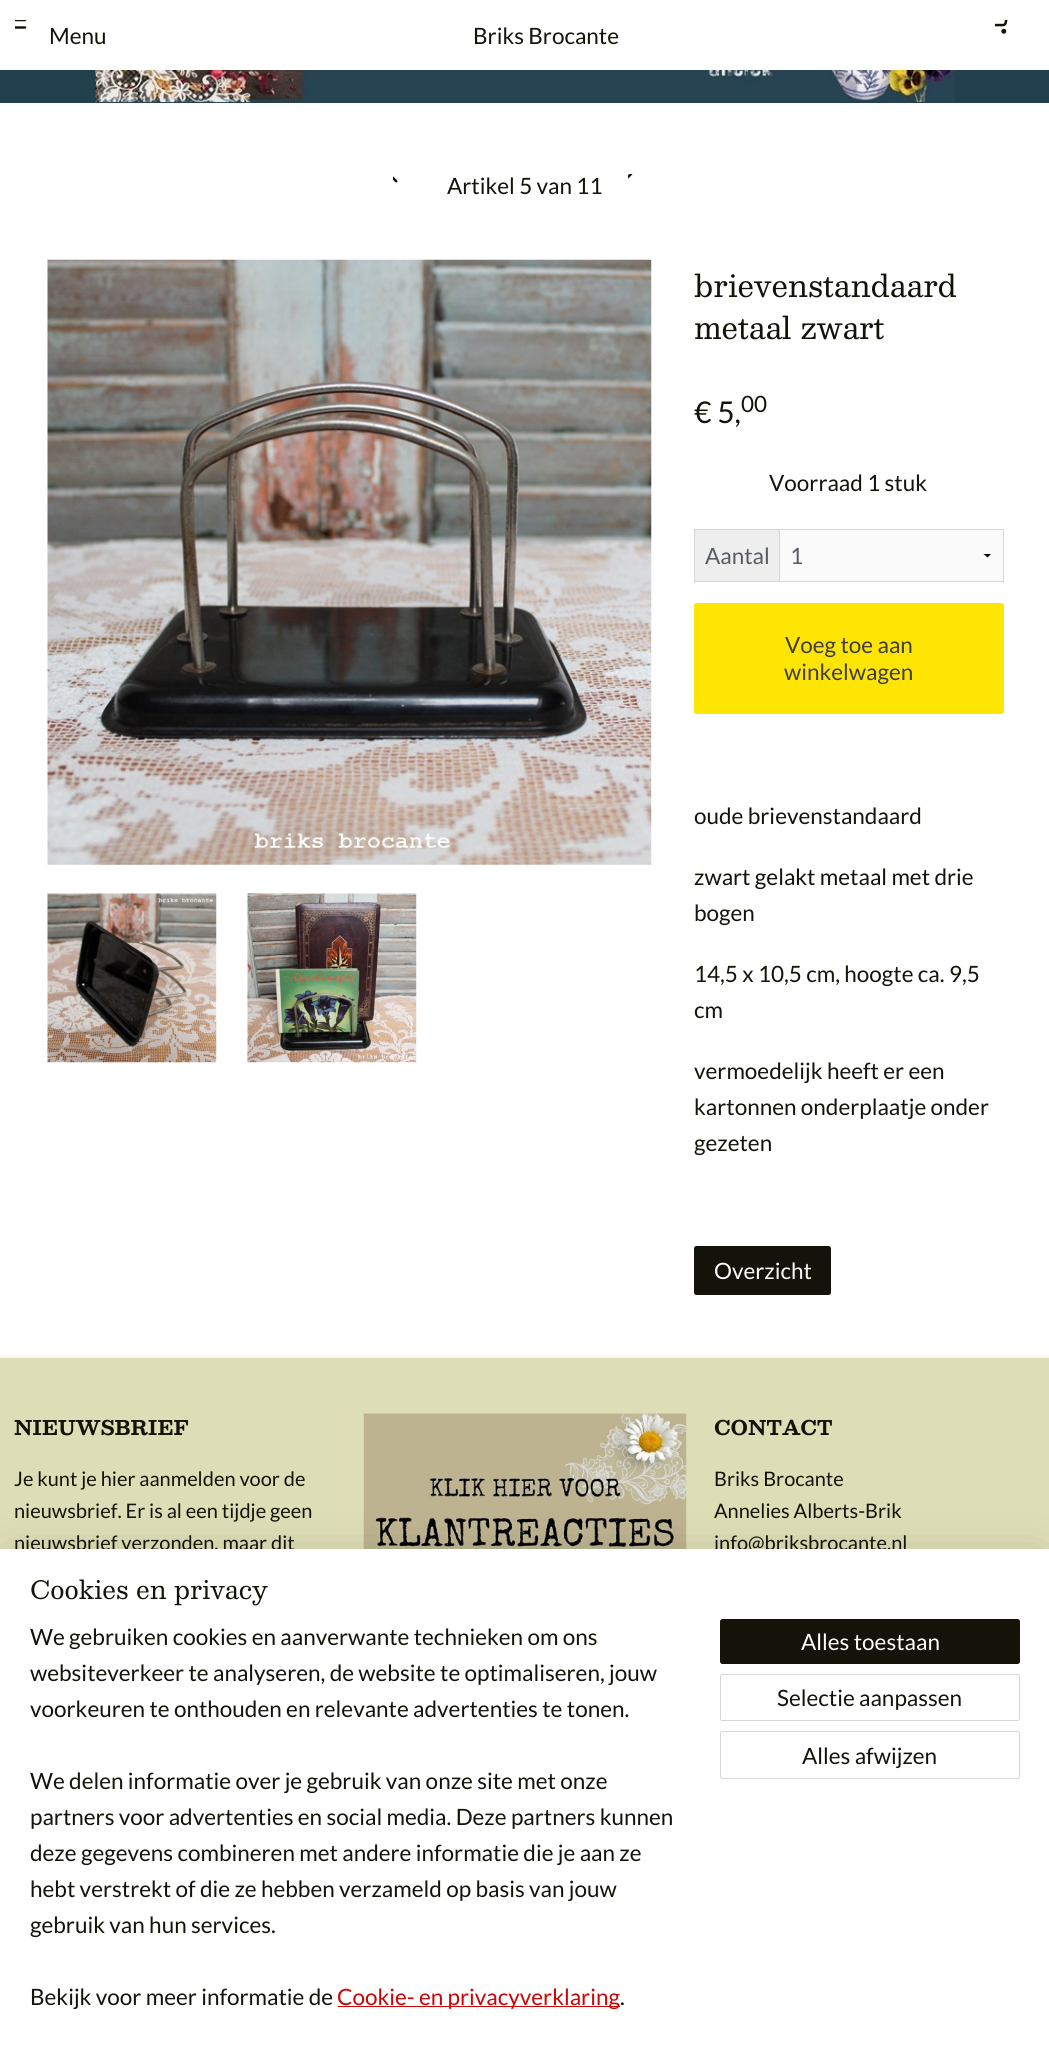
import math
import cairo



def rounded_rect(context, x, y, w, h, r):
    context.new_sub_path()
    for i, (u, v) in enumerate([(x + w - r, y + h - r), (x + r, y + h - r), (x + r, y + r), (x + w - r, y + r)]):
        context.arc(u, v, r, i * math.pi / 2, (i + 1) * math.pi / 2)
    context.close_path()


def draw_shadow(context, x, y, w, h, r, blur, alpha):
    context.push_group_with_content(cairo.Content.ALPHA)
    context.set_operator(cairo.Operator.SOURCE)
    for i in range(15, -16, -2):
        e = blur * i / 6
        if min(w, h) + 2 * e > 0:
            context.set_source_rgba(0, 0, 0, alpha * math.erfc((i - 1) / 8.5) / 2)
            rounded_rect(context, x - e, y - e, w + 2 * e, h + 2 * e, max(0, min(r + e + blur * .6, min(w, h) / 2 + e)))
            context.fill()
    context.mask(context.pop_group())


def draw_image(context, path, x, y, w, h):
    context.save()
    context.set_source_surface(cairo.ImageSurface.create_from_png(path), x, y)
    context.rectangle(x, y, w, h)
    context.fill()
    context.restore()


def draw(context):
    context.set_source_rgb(1, 1, 1)
    context.paint()
    draw_image(context, "images/1.png", 15, 20, 12, 9)
    draw_image(context, "images/2.png", 995, 20, 13, 14)
    context.set_source_rgb(34 / 255, 63 / 255, 78 / 255)
    context.rectangle(0, 70, 1049, 33)
    context.fill()
    draw_image(context, "images/3.png", 95, 70, 860, 33)
    draw_image(context, "images/4.png", 393, 176, 5, 7)
    draw_image(context, "images/5.png", 628, 174, 5, 5)
    draw_image(context, "images/6.png", 47, 259, 605, 606)
    draw_image(context, "images/7.png", 47, 893, 170, 170)
    draw_image(context, "images/8.png", 247, 893, 170, 170)
    context.set_source_rgb(211 / 255, 213 / 255, 217 / 255)
    context.rectangle(779, 529, 1, 52)
    context.fill()
    context.rectangle(694, 529, 310, 1)
    context.fill()
    context.rectangle(1003, 529, 1, 54)
    context.fill()
    context.rectangle(694, 581, 310, 1)
    context.fill()
    context.rectangle(694, 529, 1, 54)
    context.fill()
    context.set_source_rgb(238 / 255, 238 / 255, 238 / 255)
    context.rectangle(695, 530, 84, 51)
    context.fill()
    context.set_source_rgb(250 / 255, 250 / 255, 250 / 255)
    context.rectangle(780, 530, 223, 51)
    context.fill()
    context.set_source_rgb(0, 0, 0)
    context.new_path()
    context.move_to(991, 554)
    context.line_to(987.5, 557.5)
    context.line_to(983.5, 554)
    context.close_path()
    context.fill()
    context.set_source_rgb(1, 229 / 255, 4 / 255)
    rounded_rect(context, 694, 603, 310, 111, 2.5)
    context.fill()
    context.set_source_rgb(20 / 255, 19 / 255, 10 / 255)
    rounded_rect(context, 694, 1246, 137, 49, 2.5)
    context.fill()
    context.set_source_rgb(0, 0, 0)
    draw_shadow(context, 0, 1356, 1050, 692, 0, 1, 0.05)
    context.set_source_rgb(221 / 255, 221 / 255, 182 / 255)
    context.rectangle(0, 1358, 1049, 191)
    context.fill()
    draw_image(context, "images/9.png", 363, 1413, 324, 136)
    context.set_source_rgb(0, 0, 0)
    draw_shadow(context, 13, 1561, 1025, 472, 0, 22.5, 0.2)
    context.select_font_face("Lato")
    context.set_font_size(22.5)
    context.set_source_rgb(20 / 255, 19 / 255, 10 / 255)
    context.move_to(49, 44)
    context.show_text("Menu")
    context.move_to(473, 44)
    context.show_text("Briks Brocante")
    context.move_to(447, 194)
    context.show_text("Artikel 5 van 11")
    context.select_font_face("Besley")
    context.set_font_size(30)
    context.move_to(694, 297)
    context.show_text("brievenstandaard")
    context.move_to(694, 339)
    context.show_text("metaal zwart")
    context.select_font_face("Lato")
    context.move_to(694, 423)
    context.show_text("€ 5,")
    context.set_font_size(22.5)
    context.move_to(741, 412)
    context.show_text("00")
    context.move_to(769, 491)
    context.show_text("Voorraad 1 stuk")
    context.set_source_rgb(87 / 255, 91 / 255, 98 / 255)
    context.move_to(705, 564)
    context.show_text("Aantal")
    context.move_to(790, 564)
    context.show_text("1")
    context.set_source_rgb(63 / 255, 60 / 255, 60 / 255)
    context.move_to(785, 653)
    context.show_text("Voeg toe aan")
    context.move_to(784, 680)
    context.show_text("winkelwagen")
    context.set_source_rgb(20 / 255, 19 / 255, 10 / 255)
    context.move_to(694, 824)
    context.show_text("oude brievenstandaard")
    context.move_to(694, 885)
    context.show_text("zwart gelakt metaal met drie")
    context.move_to(694, 921)
    context.show_text("bogen")
    context.move_to(694, 982)
    context.show_text("14,5 x 10,5 cm, hoogte ca. 9,5")
    context.move_to(694, 1018)
    context.show_text("cm")
    context.move_to(694, 1079)
    context.show_text("vermoedelijk heeft er een")
    context.move_to(694, 1115)
    context.show_text("kartonnen onderplaatje onder")
    context.move_to(694, 1151)
    context.show_text("gezeten")
    context.set_source_rgb(1, 1, 1)
    context.move_to(714, 1279)
    context.show_text("Overzicht")
    context.select_font_face("Besley", cairo.FontSlant.NORMAL, cairo.FontWeight.BOLD)
    context.set_font_size(20)
    context.set_source_rgb(20 / 255, 19 / 255, 10 / 255)
    context.move_to(14, 1435)
    context.show_text("NIEUWSBRIEF")
    context.select_font_face("Lato")
    context.move_to(14, 1486)
    context.show_text("Je kunt je hier aanmelden voor de")
    context.move_to(14, 1518)
    context.show_text("nieuwsbrief. Er is al een tijdje geen")
    context.move_to(14, 1550)
    context.show_text("nieuwsbrief verzonden, maar dit")
    context.select_font_face("Besley", cairo.FontSlant.NORMAL, cairo.FontWeight.BOLD)
    context.move_to(714, 1435)
    context.show_text("CONTACT")
    context.select_font_face("Lato")
    context.move_to(714, 1486)
    context.show_text("Briks Brocante")
    context.move_to(714, 1518)
    context.show_text("Annelies Alberts-Brik")
    context.move_to(714, 1550)
    context.show_text("info@briksbrocante.nl")
    context.set_source_rgb(1, 1, 1)
    context.rectangle(0, 1549, 1049, 496)
    context.fill()
    context.select_font_face("Besley")
    context.set_font_size(25)
    context.set_source_rgb(20 / 255, 19 / 255, 10 / 255)
    context.move_to(30, 1599)
    context.show_text("Cookies en privacy")
    context.select_font_face("Lato")
    context.set_font_size(22.5)
    context.move_to(30, 1645)
    context.show_text("We gebruiken cookies en aanverwante technieken om ons")
    context.move_to(30, 1681)
    context.show_text("websiteverkeer te analyseren, de website te optimaliseren, jouw")
    context.move_to(30, 1717)
    context.show_text("voorkeuren te onthouden en relevante advertenties te tonen.")
    context.move_to(30, 1789)
    context.show_text("We delen informatie over je gebruik van onze site met onze")
    context.move_to(30, 1825)
    context.show_text("partners voor advertenties en social media. Deze partners kunnen")
    context.move_to(30, 1861)
    context.show_text("deze gegevens combineren met andere informatie die je aan ze")
    context.move_to(30, 1897)
    context.show_text("hebt verstrekt of die ze hebben verzameld op basis van jouw")
    context.move_to(30, 1933)
    context.show_text("gebruik van hun services.")
    context.move_to(30, 2005)
    context.show_text("Bekijk voor meer informatie de")
    context.set_source_rgb(202 / 255, 5 / 255, 5 / 255)
    context.rectangle(338, 2006, 282, 1)
    context.fill()
    context.move_to(337, 2005)
    context.show_text("Cookie- en privacyverklaring")
    context.set_source_rgb(20 / 255, 19 / 255, 10 / 255)
    context.move_to(620, 2005)
    context.show_text(".")
    rounded_rect(context, 720, 1619, 300, 45, 2.5)
    context.fill()
    context.set_source_rgb(1, 1, 1)
    context.move_to(801, 1650)
    context.show_text("Alles toestaan")
    rounded_rect(context, 720.5, 1674.5, 299, 46, 2)
    context.set_source_rgb(214 / 255, 214 / 255, 214 / 255)
    context.set_line_width(1)
    context.stroke()
    context.set_source_rgb(20 / 255, 19 / 255, 10 / 255)
    context.move_to(777, 1706)
    context.show_text("Selectie aanpassen")
    rounded_rect(context, 720.5, 1731.5, 299, 47, 2)
    context.set_source_rgb(214 / 255, 214 / 255, 214 / 255)
    context.stroke()
    context.set_source_rgb(20 / 255, 19 / 255, 10 / 255)
    context.move_to(802, 1764)
    context.show_text("Alles afwijzen")


surface = cairo.ImageSurface(cairo.Format.RGB24, 1049, 2045)
context = cairo.Context(surface)
options = cairo.FontOptions()
options.set_hint_metrics(cairo.HintMetrics.OFF)
options.set_hint_style(cairo.HintStyle.NONE)
context.set_font_options(options)
context.set_miter_limit(4)
draw(context)
surface.write_to_png("out.png")
